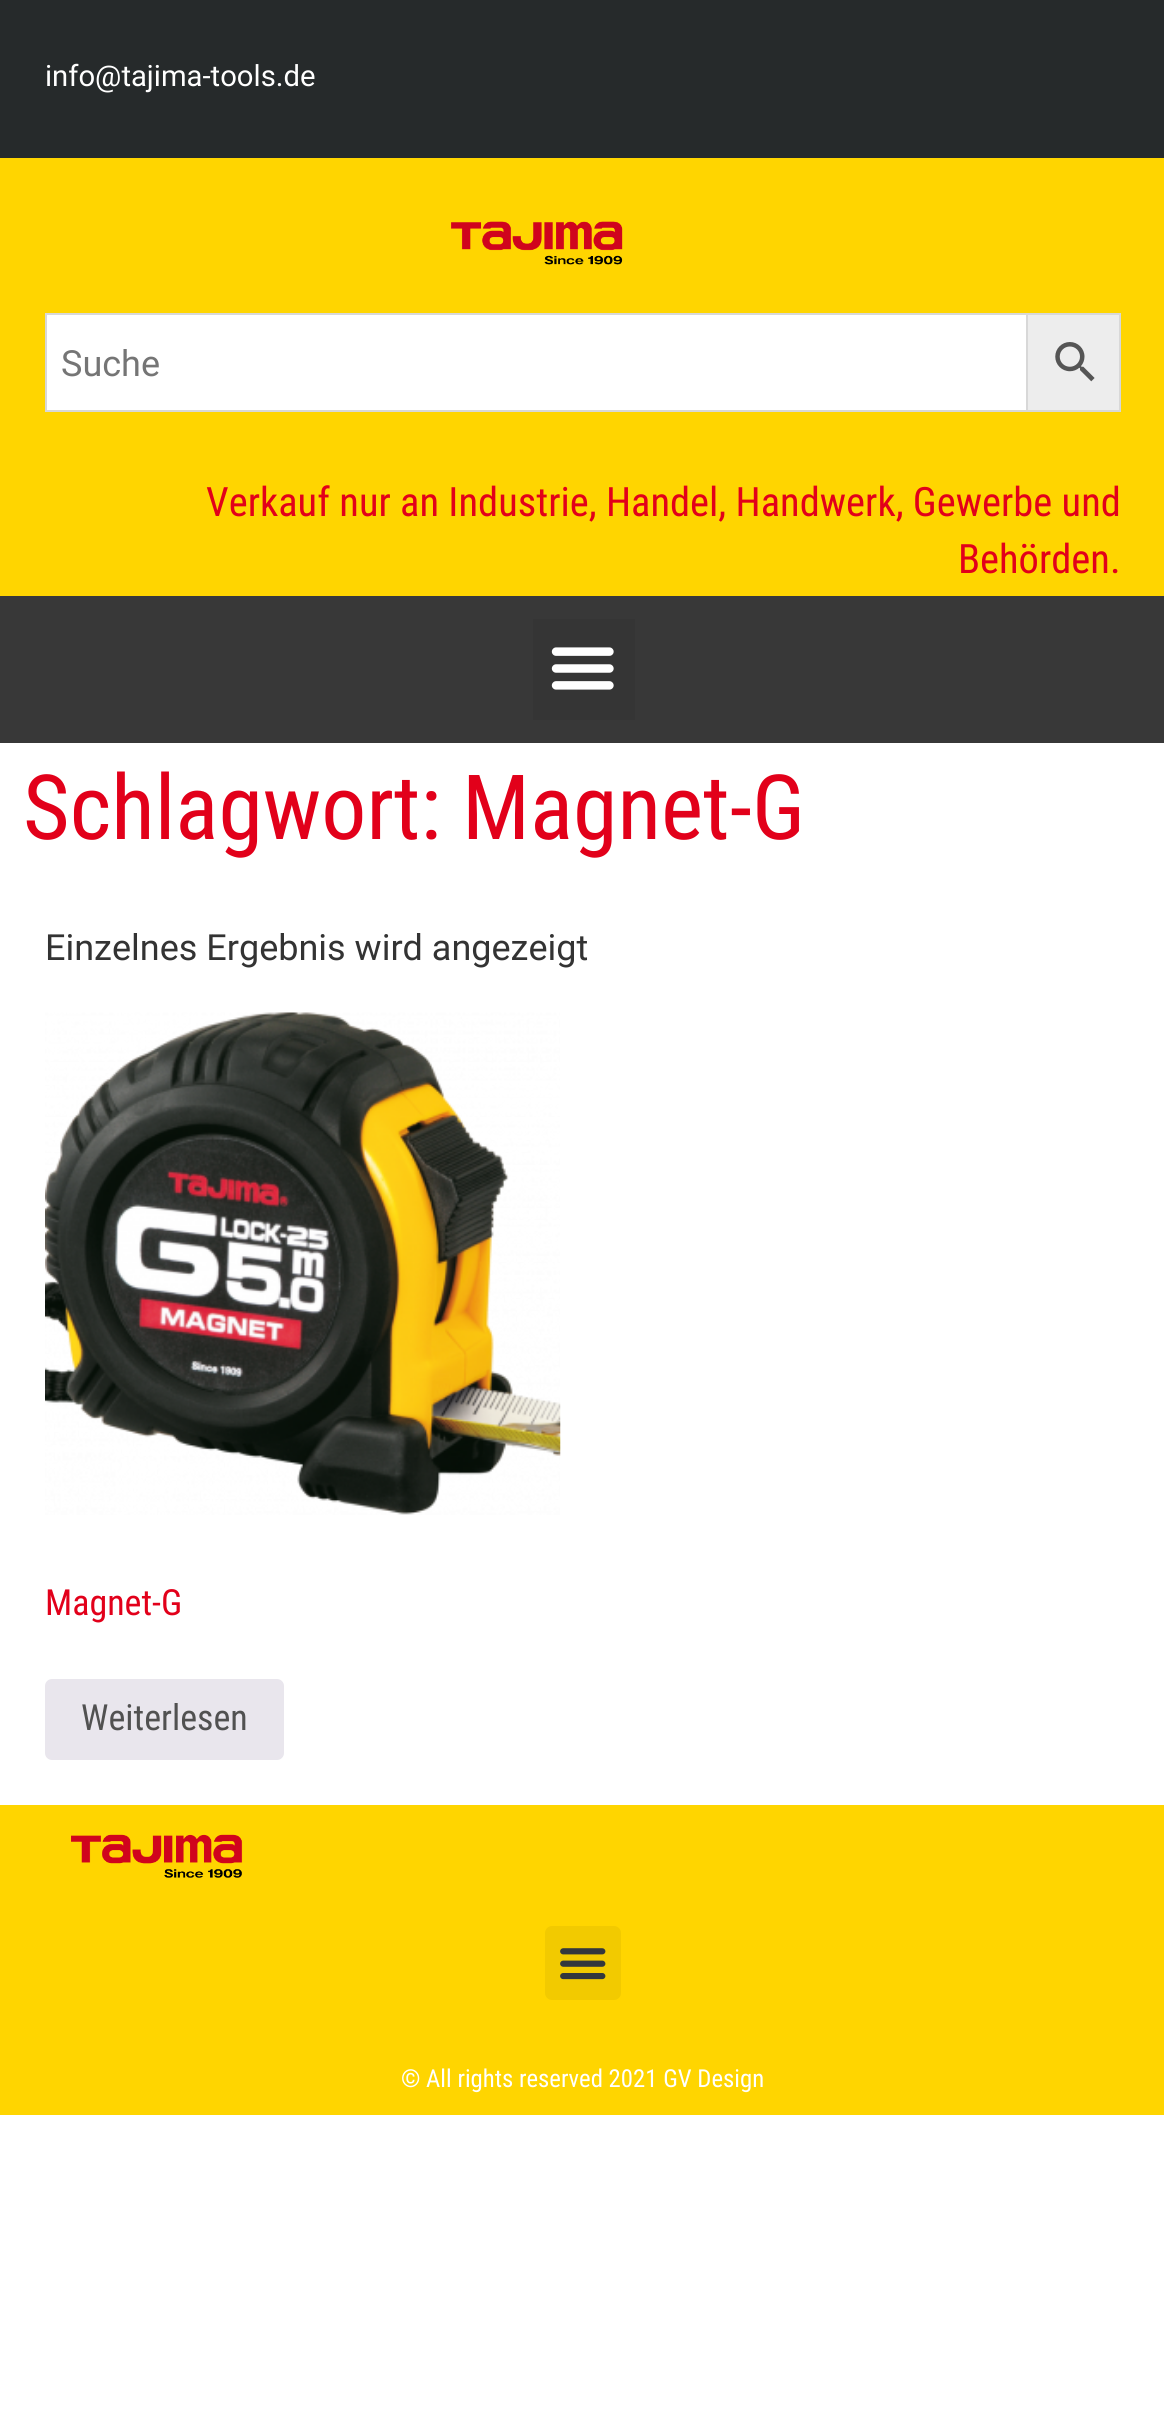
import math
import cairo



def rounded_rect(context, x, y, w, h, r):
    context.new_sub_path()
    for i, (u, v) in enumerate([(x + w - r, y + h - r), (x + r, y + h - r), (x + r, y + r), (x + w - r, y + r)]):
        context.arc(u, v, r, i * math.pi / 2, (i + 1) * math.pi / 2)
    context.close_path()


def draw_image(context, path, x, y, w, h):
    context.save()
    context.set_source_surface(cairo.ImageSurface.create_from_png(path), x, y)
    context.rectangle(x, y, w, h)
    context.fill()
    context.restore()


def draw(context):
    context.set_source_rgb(1, 1, 1)
    context.paint()
    context.set_source_rgb(38 / 255, 42 / 255, 43 / 255)
    context.rectangle(0, 0, 1164, 158)
    context.fill()
    context.set_source_rgb(1, 213 / 255, 0)
    context.rectangle(0, 158, 1164, 438)
    context.fill()
    draw_image(context, "images/1.png", 451, 221, 172, 44)
    context.set_source_rgb(237 / 255, 237 / 255, 237 / 255)
    context.rectangle(1027, 314, 93, 97)
    context.fill_preserve()
    context.set_source_rgb(216 / 255, 216 / 255, 216 / 255)
    context.stroke()
    context.set_source_rgb(1, 1, 1)
    context.rectangle(46, 314, 981, 97)
    context.fill_preserve()
    context.set_source_rgb(216 / 255, 216 / 255, 216 / 255)
    context.stroke()
    draw_image(context, "images/2.png", 1055, 342, 40, 40)
    context.set_source_rgb(56 / 255, 56 / 255, 56 / 255)
    context.rectangle(0, 596, 1164, 147)
    context.fill()
    context.set_source_rgb(53 / 255, 53 / 255, 53 / 255)
    context.rectangle(533, 619, 102, 101)
    context.fill()
    draw_image(context, "images/3.png", 551, 647, 63, 43)
    draw_image(context, "images/4.png", 45, 1012, 516, 503)
    context.set_source_rgb(233 / 255, 230 / 255, 237 / 255)
    rounded_rect(context, 45, 1679, 239, 81, 7)
    context.fill()
    context.set_source_rgb(1, 213 / 255, 0)
    context.rectangle(0, 1805, 1164, 310)
    context.fill()
    draw_image(context, "images/5.png", 71, 1834, 172, 44)
    context.set_source_rgb(242 / 255, 202 / 255, 0)
    rounded_rect(context, 545, 1926, 76, 74, 7)
    context.fill()
    draw_image(context, "images/6.png", 560, 1948, 46, 32)
    context.select_font_face("Roboto")
    context.set_font_size(29.25)
    context.set_source_rgb(1, 1, 1)
    context.move_to(45, 86)
    context.show_text("info@tajima-tools.de")
    context.set_font_size(36)
    context.set_source_rgb(117 / 255, 117 / 255, 117 / 255)
    context.move_to(61, 376)
    context.show_text("Suche")
    context.select_font_face("Roboto Condensed")
    context.set_font_size(40.5)
    context.set_source_rgb(226 / 255, 0, 26 / 255)
    context.move_to(206, 516)
    context.show_text("Verkauf nur an Industrie, Handel, Handwerk, Gewerbe und")
    context.move_to(958, 573)
    context.show_text("Behörden.")
    context.set_font_size(90)
    context.move_to(23, 839)
    context.show_text("Schlagwort: Magnet-G")
    context.select_font_face("Roboto")
    context.set_font_size(36)
    context.set_source_rgb(51 / 255, 51 / 255, 51 / 255)
    context.move_to(45, 960)
    context.show_text("Einzelnes Ergebnis wird angezeigt")
    context.select_font_face("Roboto Condensed")
    context.set_source_rgb(226 / 255, 0, 26 / 255)
    context.move_to(45, 1615)
    context.show_text("Magnet-G")
    context.set_source_rgb(81 / 255, 81 / 255, 81 / 255)
    context.move_to(81, 1730)
    context.show_text("Weiterlesen")
    context.set_font_size(24.75)
    context.set_source_rgb(1, 1, 1)
    context.move_to(401, 2087)
    context.show_text("© All rights reserved 2021 GV Design")


surface = cairo.ImageSurface(cairo.Format.RGB24, 1164, 2421)
context = cairo.Context(surface)
options = cairo.FontOptions()
options.set_hint_metrics(cairo.HintMetrics.OFF)
options.set_hint_style(cairo.HintStyle.NONE)
context.set_font_options(options)
context.set_miter_limit(4)
draw(context)
surface.write_to_png("out.png")
